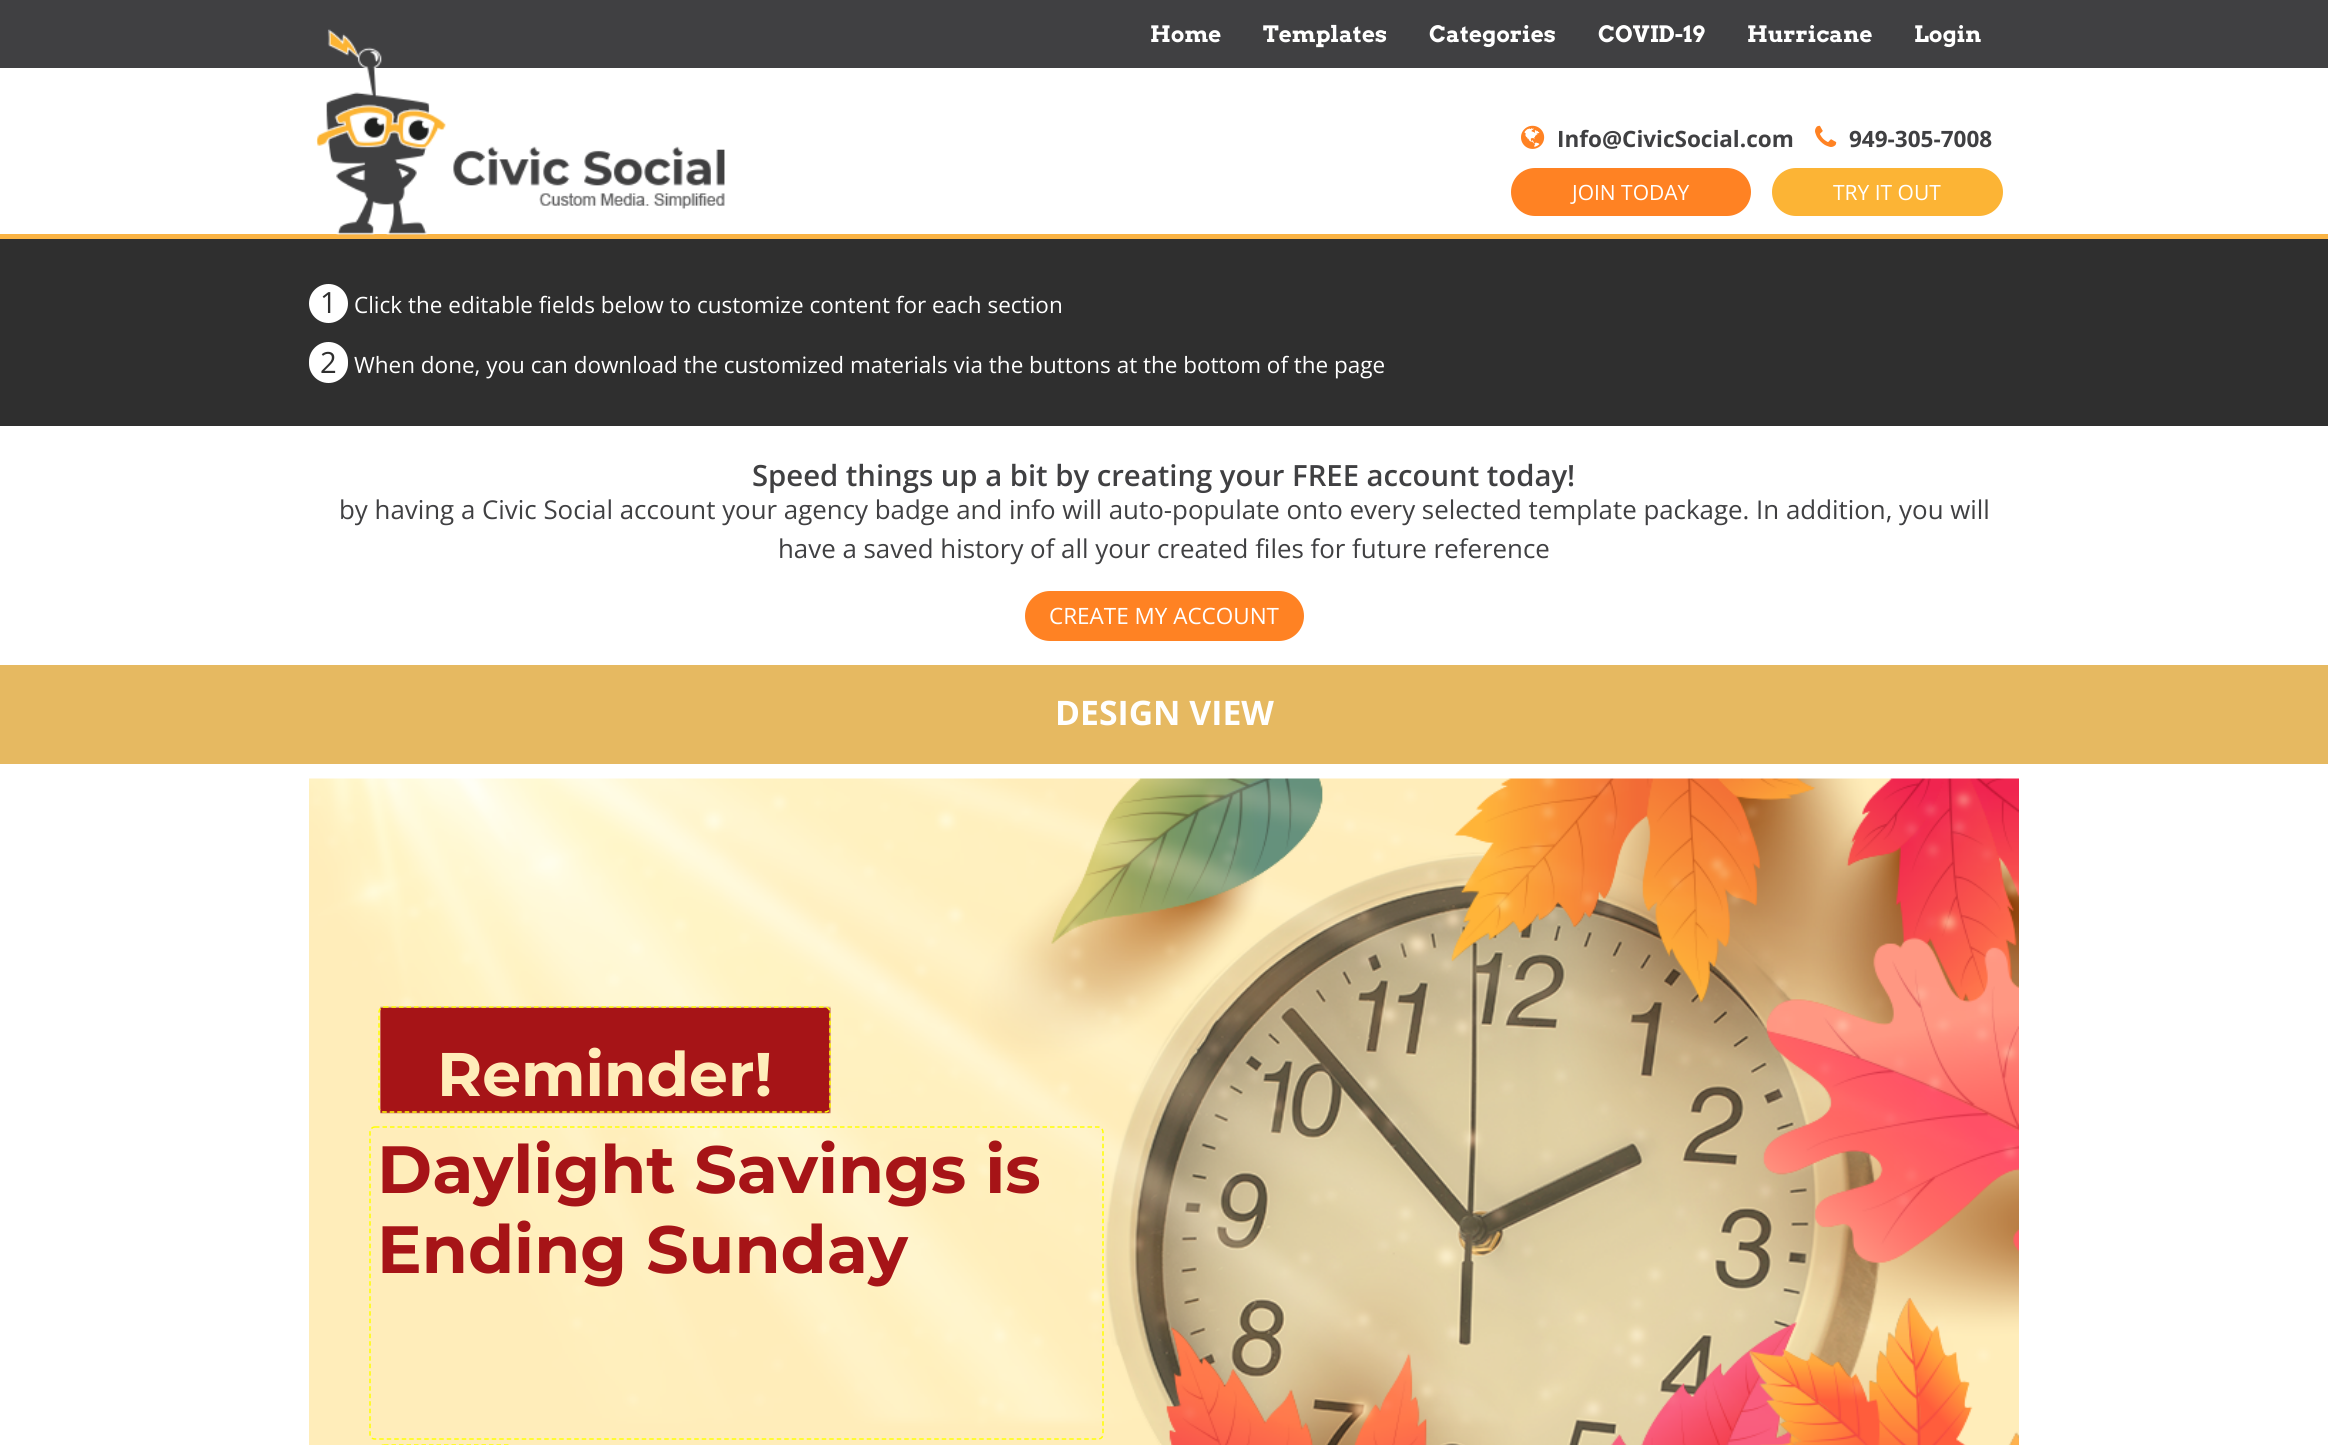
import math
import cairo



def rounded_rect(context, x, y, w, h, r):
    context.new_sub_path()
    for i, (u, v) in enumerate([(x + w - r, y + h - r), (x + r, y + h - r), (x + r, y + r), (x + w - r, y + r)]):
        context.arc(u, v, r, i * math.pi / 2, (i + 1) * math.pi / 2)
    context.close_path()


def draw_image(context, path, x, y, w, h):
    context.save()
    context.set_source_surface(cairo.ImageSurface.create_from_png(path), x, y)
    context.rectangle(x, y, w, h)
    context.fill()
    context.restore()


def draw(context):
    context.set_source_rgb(1, 1, 1)
    context.paint()
    context.set_source_rgb(64 / 255, 64 / 255, 66 / 255)
    context.rectangle(0, 0, 2328, 68)
    context.fill()
    context.set_source_rgb(250 / 255, 179 / 255, 67 / 255)
    context.rectangle(0, 234, 2328, 5)
    context.fill()
    draw_image(context, "images/1.png", 316, 29, 409, 206)
    draw_image(context, "images/2.png", 1521, 125, 24, 24)
    draw_image(context, "images/3.png", 1815, 125, 22, 22)
    context.set_source_rgb(1, 130 / 255, 35 / 255)
    rounded_rect(context, 1511, 168, 240, 48, 24)
    context.fill()
    context.set_source_rgb(252 / 255, 180 / 255, 53 / 255)
    rounded_rect(context, 1772, 168, 231, 48, 24)
    context.fill()
    context.set_source_rgb(47 / 255, 47 / 255, 47 / 255)
    context.rectangle(0, 239, 2328, 187)
    context.fill()
    context.set_source_rgb(1, 1, 1)
    context.arc(328.5, 303.5, 19.5, 0, 2 * math.pi)
    context.fill()
    rounded_rect(context, 309, 342, 39, 41, 19.5)
    context.fill()
    context.set_source_rgb(1, 130 / 255, 35 / 255)
    rounded_rect(context, 1025, 591, 279, 50, 25)
    context.fill()
    context.set_source_rgb(230 / 255, 185 / 255, 97 / 255)
    context.rectangle(0, 665, 2328, 99)
    context.fill()
    draw_image(context, "images/4.png", 309, 778, 1710, 667)
    context.new_path()
    context.move_to(384, 1445)
    context.line_to(508.5, 1445)
    context.curve_to(511.5, 1445, 514, 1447.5, 514, 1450.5)
    context.line_to(514, 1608)
    context.curve_to(514, 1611, 511.5, 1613, 508.5, 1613)
    context.line_to(384, 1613)
    context.curve_to(381, 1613, 379, 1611, 379, 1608)
    context.line_to(379, 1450.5)
    context.curve_to(379, 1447.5, 381, 1445, 384, 1445)
    context.close_path()
    context.set_source_rgb(1, 1, 0)
    context.set_line_width(1.5)
    context.set_dash([4.5, 3])
    context.stroke()
    context.select_font_face("Arvo", cairo.FontSlant.NORMAL, cairo.FontWeight.BOLD)
    context.set_font_size(22.5)
    context.set_source_rgb(1, 1, 1)
    context.move_to(1150, 42)
    context.show_text("Home")
    context.move_to(1263, 42)
    context.show_text("Templates")
    context.move_to(1429, 42)
    context.show_text("Categories")
    context.move_to(1598, 42)
    context.show_text("COVID-19")
    context.move_to(1747, 42)
    context.show_text("Hurricane")
    context.move_to(1914, 42)
    context.show_text("Login")
    context.select_font_face("Open Sans", cairo.FontSlant.NORMAL, cairo.FontWeight.BOLD)
    context.set_source_rgb(64 / 255, 64 / 255, 66 / 255)
    context.move_to(1557, 147)
    context.show_text("Info@CivicSocial.com")
    context.move_to(1849, 147)
    context.show_text("949-305-7008")
    context.select_font_face("Open Sans")
    context.set_font_size(21)
    context.set_source_rgb(1, 1, 1)
    context.move_to(1572, 200)
    context.show_text("JOIN TODAY")
    context.move_to(1833, 200)
    context.show_text("TRY IT OUT")
    context.set_font_size(29.25)
    context.set_source_rgb(47 / 255, 47 / 255, 47 / 255)
    context.move_to(320, 313)
    context.show_text("1")
    context.set_font_size(22.5)
    context.set_source_rgb(1, 1, 1)
    context.move_to(354, 313)
    context.show_text("Click the editable fields below to customize content for each section")
    context.set_font_size(29.25)
    context.set_source_rgb(47 / 255, 47 / 255, 47 / 255)
    context.move_to(320, 373)
    context.show_text("2")
    context.set_font_size(22.5)
    context.set_source_rgb(1, 1, 1)
    context.move_to(354, 373)
    context.show_text("When done, you can download the customized materials via the buttons at the bottom of the page")
    context.select_font_face("Open Sans SemiBold")
    context.set_font_size(29.25)
    context.set_source_rgb(64 / 255, 64 / 255, 66 / 255)
    context.move_to(752, 486)
    context.show_text("Speed things up a bit by creating your FREE account today!")
    context.select_font_face("Open Sans")
    context.set_font_size(25.88)
    context.move_to(339, 519)
    context.show_text("by having a Civic Social account your agency badge and info will auto-populate onto every selected template package. In addition, you will")
    context.move_to(778, 558)
    context.show_text("have a saved history of all your created files for future reference")
    context.set_font_size(22.5)
    context.set_source_rgb(1, 1, 1)
    context.move_to(1049, 624)
    context.show_text("CREATE MY ACCOUNT")
    context.select_font_face("Open Sans", cairo.FontSlant.NORMAL, cairo.FontWeight.BOLD)
    context.set_font_size(33.75)
    context.move_to(1055, 725)
    context.show_text("DESIGN VIEW")
    context.select_font_face("Montserrat", cairo.FontSlant.NORMAL, cairo.FontWeight.BOLD)
    context.set_font_size(61.5)
    context.set_source_rgb(1, 237 / 255, 186 / 255)
    context.move_to(437, 1096)
    context.show_text("Reminder!")
    context.new_path()
    context.move_to(384, 1007)
    context.line_to(825, 1007)
    context.curve_to(828, 1007, 830, 1009.5, 830, 1012.5)
    context.line_to(830, 1107)
    context.curve_to(830, 1110, 828, 1112, 825, 1112)
    context.line_to(384, 1112)
    context.curve_to(381, 1112, 379, 1110, 379, 1107)
    context.line_to(379, 1012.5)
    context.curve_to(379, 1009.5, 381, 1007, 384, 1007)
    context.close_path()
    context.set_source_rgb(1, 1, 0)
    context.stroke()
    context.set_font_size(66.75)
    context.set_source_rgb(166 / 255, 20 / 255, 23 / 255)
    context.move_to(377, 1193)
    context.show_text("Daylight Savings is")
    context.move_to(377, 1273)
    context.show_text("Ending Sunday")
    context.new_path()
    context.move_to(375, 1127)
    context.line_to(1098, 1127)
    context.curve_to(1101, 1127, 1103, 1129.5, 1103, 1132.5)
    context.line_to(1103, 1434)
    context.curve_to(1103, 1437, 1101, 1439, 1098, 1439)
    context.line_to(375, 1439)
    context.curve_to(372, 1439, 370, 1437, 370, 1434)
    context.line_to(370, 1132.5)
    context.curve_to(370, 1129.5, 372, 1127, 375, 1127)
    context.close_path()
    context.set_source_rgb(1, 1, 0)
    context.stroke()


surface = cairo.ImageSurface(cairo.Format.RGB24, 2328, 1445)
context = cairo.Context(surface)
options = cairo.FontOptions()
options.set_hint_metrics(cairo.HintMetrics.OFF)
options.set_hint_style(cairo.HintStyle.NONE)
context.set_font_options(options)
context.set_miter_limit(4)
draw(context)
surface.write_to_png("out.png")
